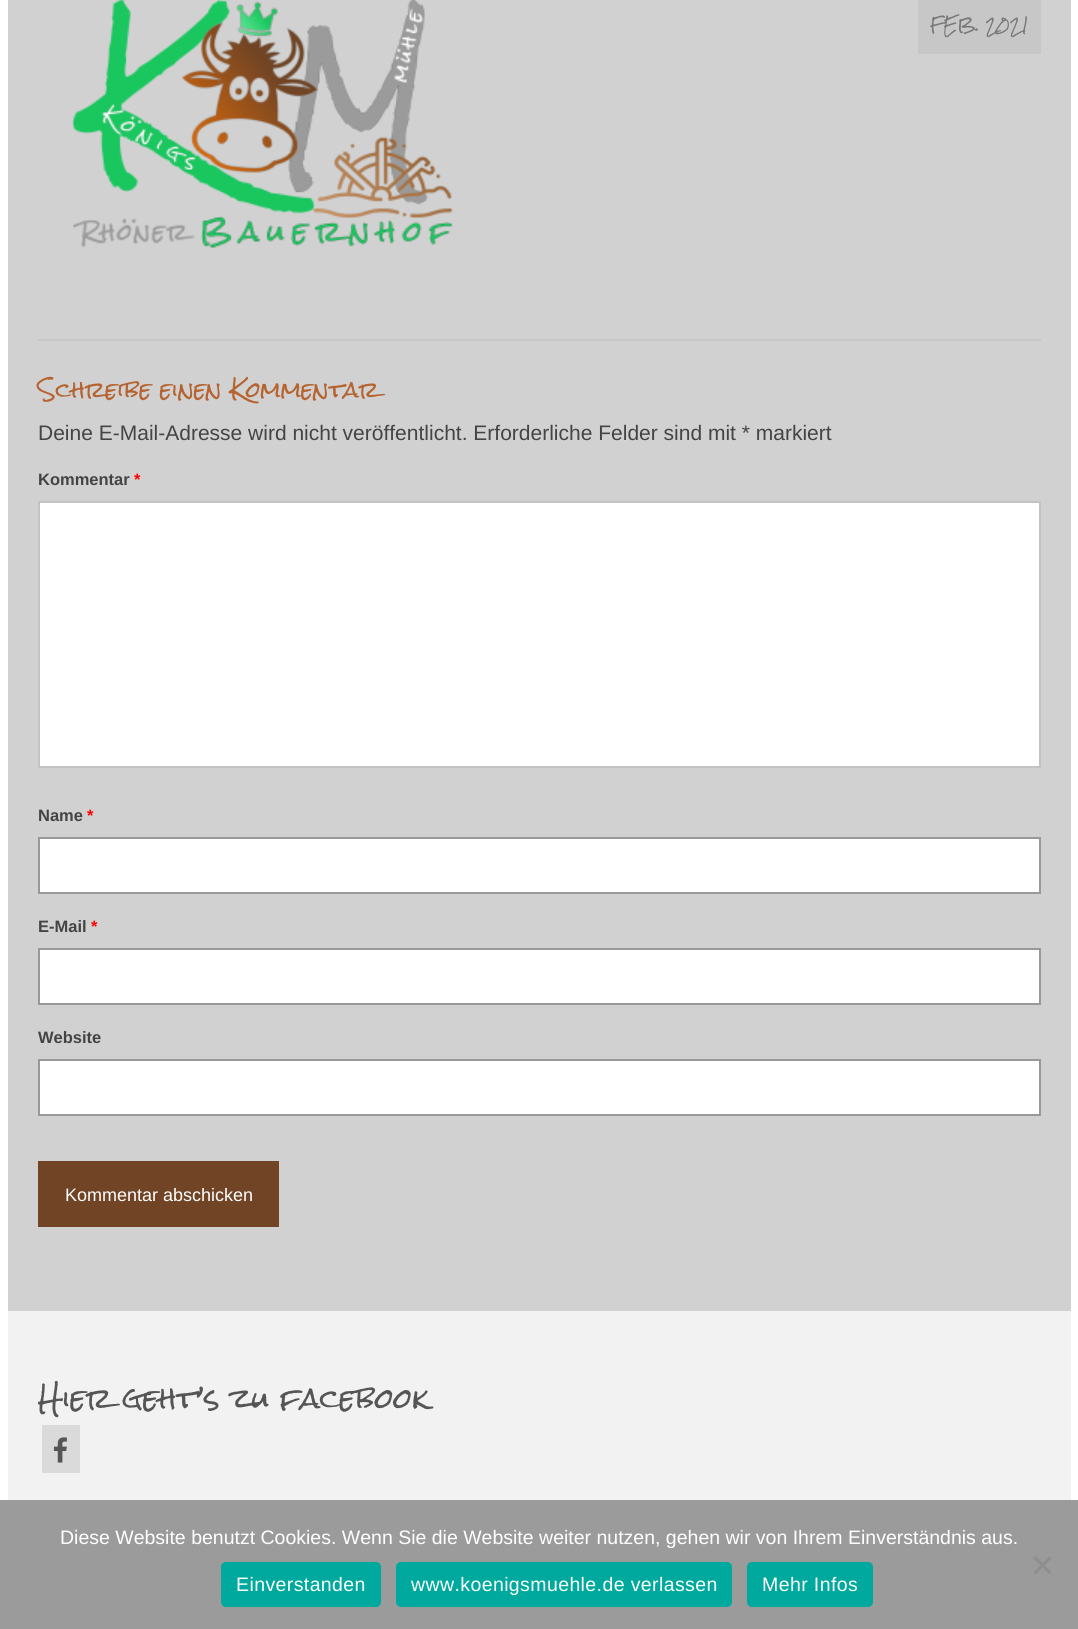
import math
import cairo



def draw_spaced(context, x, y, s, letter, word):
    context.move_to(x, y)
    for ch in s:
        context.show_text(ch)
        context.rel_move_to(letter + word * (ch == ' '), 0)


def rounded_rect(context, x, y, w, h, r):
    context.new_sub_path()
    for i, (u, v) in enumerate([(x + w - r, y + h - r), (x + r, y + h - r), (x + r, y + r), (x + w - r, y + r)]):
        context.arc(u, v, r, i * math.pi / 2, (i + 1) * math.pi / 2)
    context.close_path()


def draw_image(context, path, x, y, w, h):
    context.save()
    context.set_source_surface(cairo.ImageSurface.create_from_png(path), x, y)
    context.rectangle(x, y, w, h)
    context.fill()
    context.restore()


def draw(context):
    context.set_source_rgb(1, 1, 1)
    context.paint()
    context.set_source_rgb(209 / 255, 209 / 255, 209 / 255)
    context.rectangle(8, 0, 1063, 1311)
    context.fill()
    draw_image(context, "images/1.png", 72, 0, 382, 248)
    context.set_source_rgb(199 / 255, 199 / 255, 199 / 255)
    context.rectangle(918, 0, 123, 54)
    context.fill()
    context.rectangle(38, 339, 1003, 2)
    context.fill()
    context.set_source_rgb(1, 1, 1)
    context.rectangle(39, 502, 1001, 265)
    context.fill_preserve()
    context.set_source_rgb(195 / 255, 195 / 255, 195 / 255)
    context.stroke()
    context.set_source_rgb(1, 1, 1)
    context.rectangle(39, 838, 1001, 55)
    context.fill_preserve()
    context.set_source_rgb(153 / 255, 153 / 255, 153 / 255)
    context.stroke()
    context.set_source_rgb(1, 1, 1)
    context.rectangle(39, 949, 1001, 55)
    context.fill_preserve()
    context.set_source_rgb(153 / 255, 153 / 255, 153 / 255)
    context.stroke()
    context.set_source_rgb(1, 1, 1)
    context.rectangle(39, 1060, 1001, 55)
    context.fill_preserve()
    context.set_source_rgb(153 / 255, 153 / 255, 153 / 255)
    context.stroke()
    context.set_source_rgb(112 / 255, 68 / 255, 37 / 255)
    context.rectangle(38, 1161, 241, 66)
    context.fill()
    context.set_source_rgb(242 / 255, 242 / 255, 242 / 255)
    context.rectangle(8, 1311, 1063, 189)
    context.fill()
    context.set_source_rgb(218 / 255, 218 / 255, 218 / 255)
    context.rectangle(42, 1425, 38, 48)
    context.fill()
    draw_image(context, "images/2.png", 53, 1437, 14, 26)
    context.set_source_rgb(155 / 255, 155 / 255, 155 / 255)
    context.rectangle(0, 1500, 1078, 129)
    context.fill()
    context.set_source_rgb(142 / 255, 142 / 255, 142 / 255)
    context.new_path()
    context.move_to(1049.5, 1556)
    context.line_to(1051.5, 1558.5)
    context.line_to(1035.5, 1574.5)
    context.line_to(1033.5, 1572)
    context.close_path()
    context.fill()
    context.new_path()
    context.move_to(1033.5, 1558.5)
    context.line_to(1035.5, 1556)
    context.line_to(1051.5, 1572)
    context.line_to(1049.5, 1574.5)
    context.close_path()
    context.fill()
    context.set_source_rgb(0, 169 / 255, 157 / 255)
    rounded_rect(context, 221, 1562, 160, 45, 5)
    context.fill()
    rounded_rect(context, 396, 1562, 336, 45, 5)
    context.fill()
    rounded_rect(context, 747, 1562, 126, 45, 5)
    context.fill()
    context.select_font_face("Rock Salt")
    context.set_font_size(15)
    context.set_source_rgb(119 / 255, 119 / 255, 119 / 255)
    context.move_to(930, 31)
    context.show_text("FEB. 2021")
    context.set_font_size(21)
    context.set_source_rgb(181 / 255, 99 / 255, 48 / 255)
    context.move_to(38, 398)
    context.show_text("Schreibe einen Kommentar")
    context.select_font_face("Liberation Sans")
    context.set_source_rgb(68 / 255, 68 / 255, 68 / 255)
    context.move_to(38, 440)
    context.show_text("Deine E-Mail-Adresse wird nicht veröffentlicht. Erforderliche Felder sind mit * markiert")
    context.select_font_face("Liberation Sans", cairo.FontSlant.NORMAL, cairo.FontWeight.BOLD)
    context.set_font_size(16.5)
    context.move_to(38, 485)
    context.show_text("Kommentar")
    context.set_source_rgb(1, 0, 0)
    context.move_to(134, 485)
    context.show_text("*")
    context.set_source_rgb(68 / 255, 68 / 255, 68 / 255)
    context.move_to(38, 821)
    context.show_text("Name")
    context.set_source_rgb(1, 0, 0)
    context.move_to(87, 821)
    context.show_text("*")
    context.set_source_rgb(68 / 255, 68 / 255, 68 / 255)
    context.move_to(38, 932)
    context.show_text("E-Mail")
    context.set_source_rgb(1, 0, 0)
    context.move_to(91, 932)
    context.show_text("*")
    context.set_source_rgb(68 / 255, 68 / 255, 68 / 255)
    context.move_to(38, 1043)
    context.show_text("Website")
    context.select_font_face("Liberation Sans")
    context.set_font_size(18)
    context.set_source_rgb(1, 1, 1)
    context.move_to(65, 1201)
    context.show_text("Kommentar abschicken")
    context.select_font_face("Rock Salt")
    context.set_font_size(27)
    context.set_source_rgb(85 / 255, 85 / 255, 85 / 255)
    context.move_to(38, 1409)
    context.show_text("Hier geht’s zu facebook")
    context.select_font_face("Liberation Sans")
    context.set_font_size(19.5)
    context.set_source_rgb(1, 1, 1)
    context.move_to(60, 1544)
    context.show_text("Diese Website benutzt Cookies. Wenn Sie die Website weiter nutzen, gehen wir von Ihrem Einverständnis aus.")
    draw_spaced(context, 236, 1591, "Einverstanden", 0.4, 0)
    draw_spaced(context, 411, 1591, "www.koenigsmuehle.de verlassen", 0.4, 0)
    draw_spaced(context, 762, 1591, "Mehr Infos", 0.4, 0)


surface = cairo.ImageSurface(cairo.Format.RGB24, 1078, 1629)
context = cairo.Context(surface)
options = cairo.FontOptions()
options.set_hint_metrics(cairo.HintMetrics.OFF)
options.set_hint_style(cairo.HintStyle.NONE)
context.set_font_options(options)
context.set_miter_limit(4)
draw(context)
surface.write_to_png("out.png")
